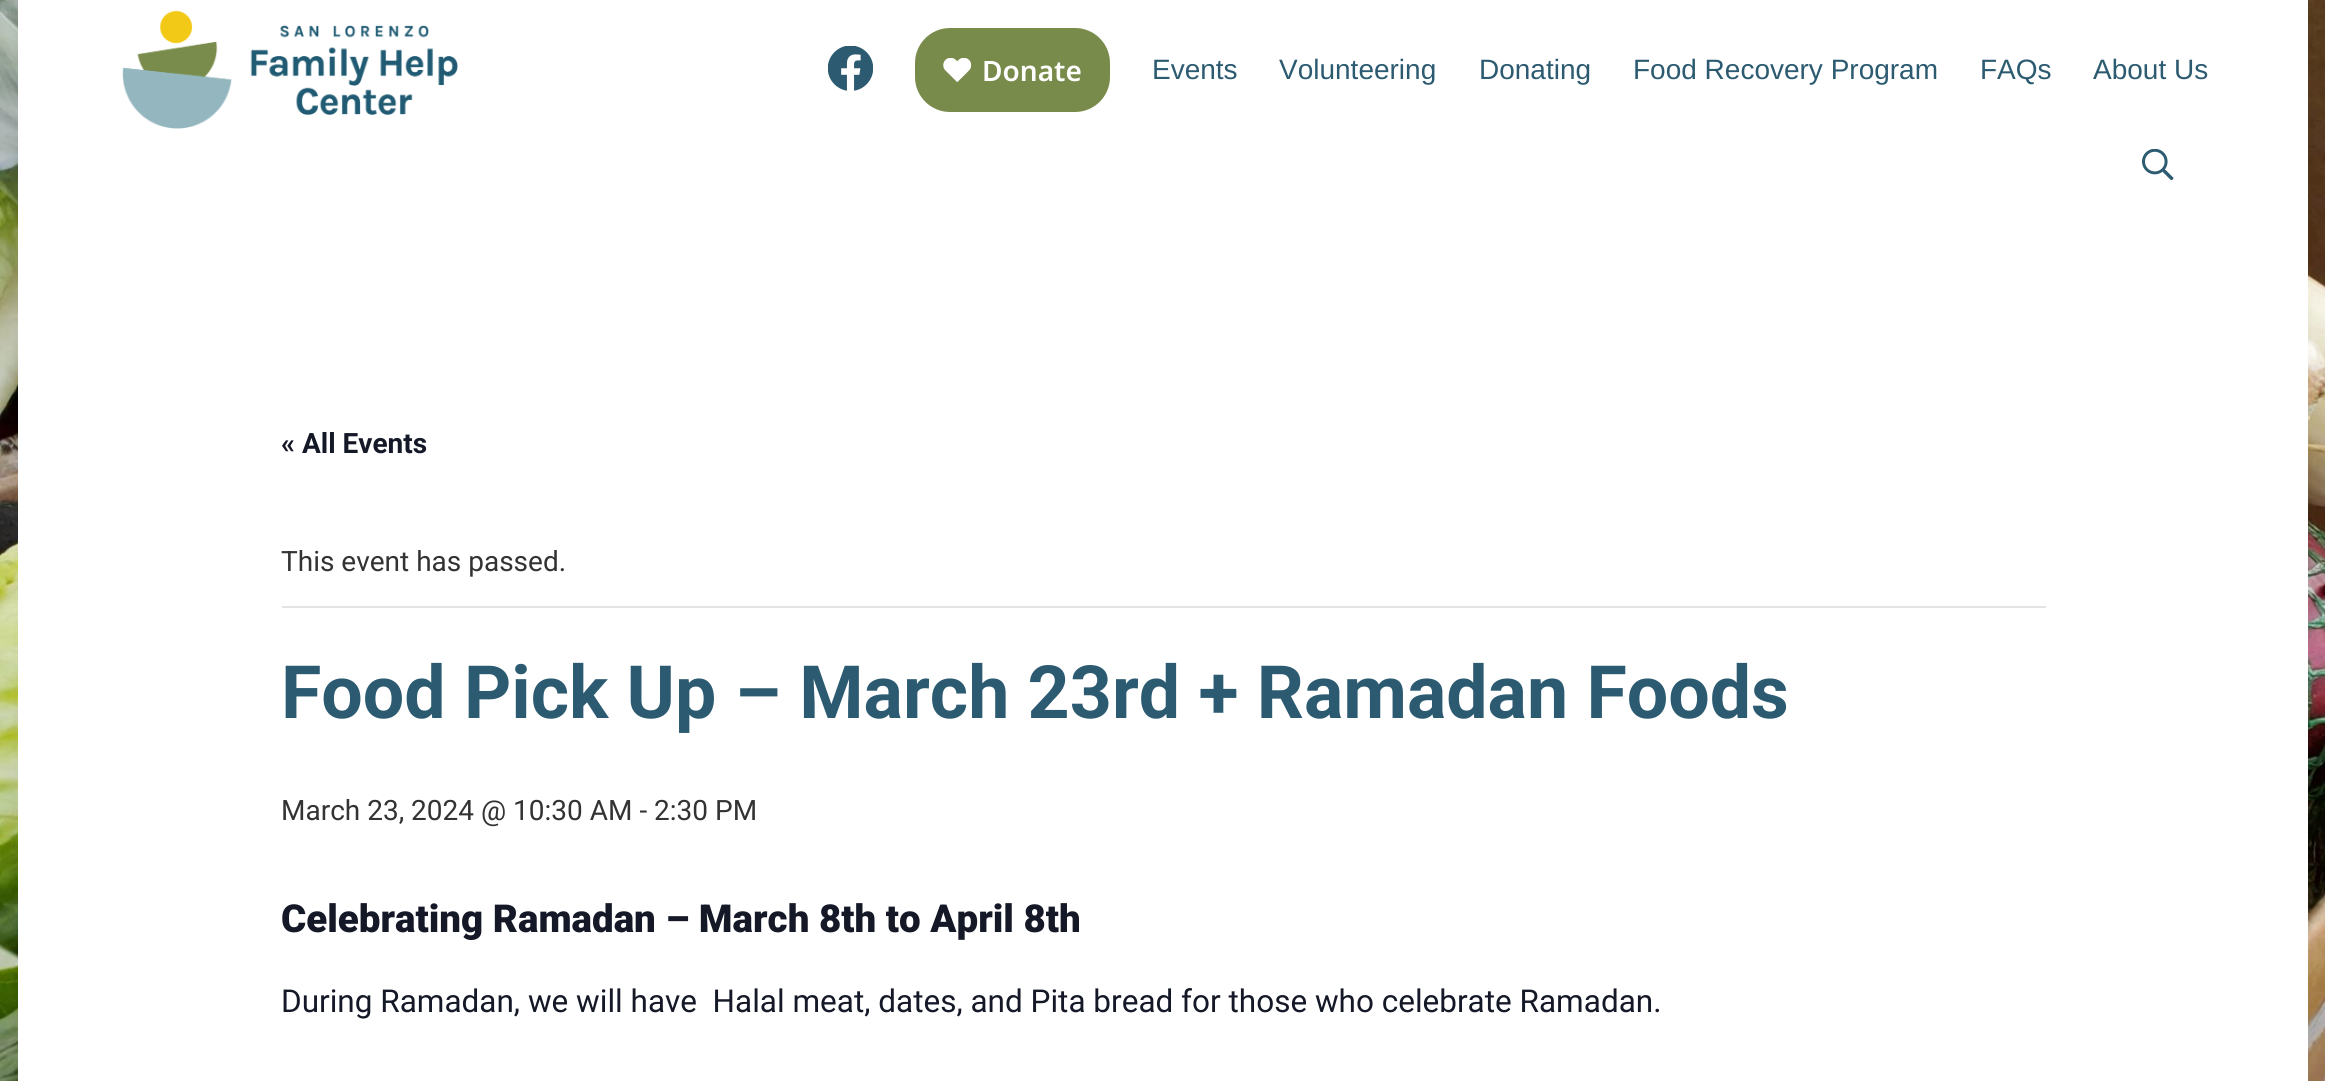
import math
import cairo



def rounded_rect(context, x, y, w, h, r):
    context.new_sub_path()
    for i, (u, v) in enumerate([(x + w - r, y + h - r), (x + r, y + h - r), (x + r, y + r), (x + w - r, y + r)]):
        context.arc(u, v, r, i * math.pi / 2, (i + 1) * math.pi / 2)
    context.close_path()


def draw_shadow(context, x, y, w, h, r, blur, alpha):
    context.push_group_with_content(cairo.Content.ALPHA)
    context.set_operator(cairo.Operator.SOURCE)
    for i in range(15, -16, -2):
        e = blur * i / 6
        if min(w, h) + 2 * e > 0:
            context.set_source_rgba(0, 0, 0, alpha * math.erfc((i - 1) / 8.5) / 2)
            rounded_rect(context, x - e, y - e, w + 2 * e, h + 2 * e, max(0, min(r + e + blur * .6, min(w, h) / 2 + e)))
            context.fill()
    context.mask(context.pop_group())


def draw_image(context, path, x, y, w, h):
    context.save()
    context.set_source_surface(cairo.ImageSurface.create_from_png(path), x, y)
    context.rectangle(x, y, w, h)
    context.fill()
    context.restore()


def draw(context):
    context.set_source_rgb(1, 1, 1)
    context.paint()
    draw_image(context, "images/1.png", 0, 0, 2325, 1081)
    context.set_source_rgb(0, 0, 0)
    draw_shadow(context, 18, 0, 2290, 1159, 0, 26, 0.05)
    context.set_source_rgb(1, 1, 1)
    context.rectangle(18, 0, 2290, 1081)
    context.fill()
    draw_image(context, "images/2.png", 122, 10, 336, 119)
    draw_image(context, "images/3.png", 828, 46, 45, 45)
    context.set_source_rgb(120 / 255, 139 / 255, 75 / 255)
    rounded_rect(context, 915, 28, 195, 84, 35)
    context.fill()
    draw_image(context, "images/4.png", 943, 58, 28, 24)
    draw_image(context, "images/5.png", 2142, 149, 32, 31)
    context.set_source_rgb(228 / 255, 228 / 255, 228 / 255)
    context.rectangle(282, 606, 1764, 2)
    context.fill()
    context.select_font_face("Noto Sans SemiBold")
    context.set_font_size(28)
    context.set_source_rgb(1, 1, 1)
    context.move_to(982, 81)
    context.show_text("Donate")
    context.select_font_face("Liberation Sans")
    context.set_source_rgb(44 / 255, 91 / 255, 113 / 255)
    context.move_to(1152, 79)
    context.show_text("Events")
    context.move_to(1279, 79)
    context.show_text("Volunteering")
    context.move_to(1479, 79)
    context.show_text("Donating")
    context.move_to(1633, 79)
    context.show_text("Food Recovery Program")
    context.move_to(1980, 79)
    context.show_text("FAQs")
    context.move_to(2093, 79)
    context.show_text("About Us")
    context.select_font_face("Roboto", cairo.FontSlant.NORMAL, cairo.FontWeight.BOLD)
    context.set_source_rgb(20 / 255, 24 / 255, 39 / 255)
    context.move_to(281, 453)
    context.show_text("« All Events")
    context.select_font_face("Roboto")
    context.set_source_rgb(51 / 255, 51 / 255, 51 / 255)
    context.move_to(281, 571)
    context.show_text("This event has passed.")
    context.select_font_face("Roboto", cairo.FontSlant.NORMAL, cairo.FontWeight.BOLD)
    context.set_font_size(73.5)
    context.set_source_rgb(44 / 255, 91 / 255, 113 / 255)
    context.move_to(281, 718)
    context.show_text("Food Pick Up – March 23rd + Ramadan Foods")
    context.select_font_face("Roboto")
    context.set_font_size(28)
    context.set_source_rgb(51 / 255, 51 / 255, 51 / 255)
    context.move_to(281, 820)
    context.show_text("March 23, 2024 @ 10:30 AM - 2:30 PM")
    context.select_font_face("Roboto Black")
    context.set_font_size(38.5)
    context.set_source_rgb(20 / 255, 24 / 255, 39 / 255)
    context.move_to(281, 932)
    context.show_text("Celebrating Ramadan – March 8th to April 8th")
    context.select_font_face("Roboto")
    context.set_font_size(31.5)
    context.move_to(281, 1012)
    context.show_text("During Ramadan, we will have  Halal meat, dates, and Pita bread for those who celebrate Ramadan.")


surface = cairo.ImageSurface(cairo.Format.RGB24, 2325, 1081)
context = cairo.Context(surface)
options = cairo.FontOptions()
options.set_hint_metrics(cairo.HintMetrics.OFF)
options.set_hint_style(cairo.HintStyle.NONE)
context.set_font_options(options)
context.set_miter_limit(4)
draw(context)
surface.write_to_png("out.png")
